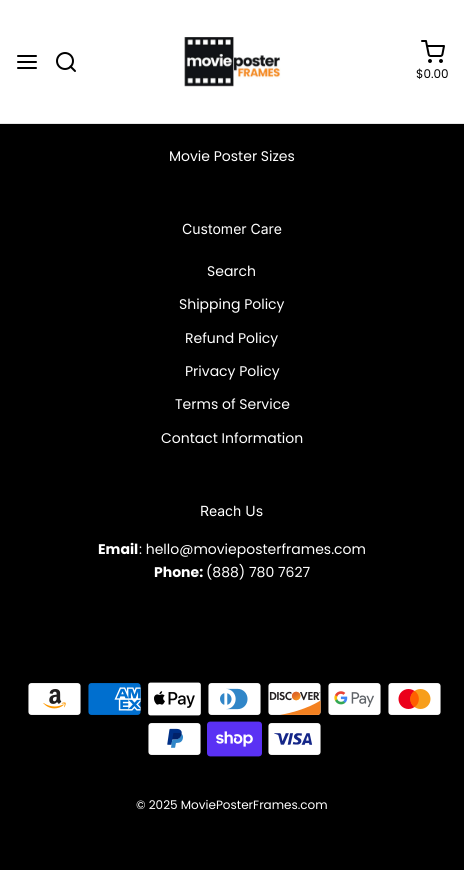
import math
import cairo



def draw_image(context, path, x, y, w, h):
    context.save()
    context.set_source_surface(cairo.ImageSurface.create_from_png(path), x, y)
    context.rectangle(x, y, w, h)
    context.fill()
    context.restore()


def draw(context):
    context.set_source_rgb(0, 0, 0)
    context.paint()
    context.set_source_rgb(1, 1, 1)
    context.rectangle(0, 0, 464, 123)
    context.fill()
    context.set_source_rgb(230 / 255, 230 / 255, 230 / 255)
    context.rectangle(0, 123, 464, 1)
    context.fill()
    context.new_path()
    context.move_to(18, 62)
    context.line_to(36, 62)
    context.move_to(18, 56)
    context.line_to(36, 56)
    context.move_to(18, 68)
    context.line_to(36, 68)
    context.set_source_rgb(0, 0, 0)
    context.set_line_cap(cairo.LineCap.ROUND)
    context.set_line_join(cairo.LineJoin.ROUND)
    context.stroke()
    context.arc(65, 61, 8, 0, 2 * math.pi)
    context.set_line_cap(cairo.LineCap.BUTT)
    context.set_line_join(cairo.LineJoin.MITER)
    context.stroke()
    context.new_path()
    context.move_to(75, 71)
    context.line_to(70.5, 66.5)
    context.set_line_cap(cairo.LineCap.ROUND)
    context.set_line_join(cairo.LineJoin.ROUND)
    context.stroke()
    draw_image(context, "images/1.png", 184, 37, 97, 50)
    draw_image(context, "images/2.png", 421, 40, 24, 23)
    draw_image(context, "images/3.png", 28, 683, 53, 32)
    draw_image(context, "images/4.png", 88, 683, 53, 32)
    draw_image(context, "images/5.png", 148, 682, 53, 34)
    draw_image(context, "images/6.png", 208, 683, 53, 32)
    draw_image(context, "images/7.png", 268, 683, 53, 32)
    draw_image(context, "images/8.png", 328, 683, 53, 32)
    draw_image(context, "images/9.png", 388, 683, 53, 32)
    draw_image(context, "images/10.png", 148, 723, 53, 32)
    draw_image(context, "images/11.png", 207, 721, 55, 36)
    draw_image(context, "images/12.png", 268, 723, 53, 32)
    context.select_font_face("Poppins")
    context.set_font_size(12)
    context.move_to(416, 78)
    context.show_text("$0.00")
    context.set_font_size(14)
    context.set_source_rgb(1, 1, 1)
    context.move_to(169, 161)
    context.show_text("Movie Poster Sizes")
    context.select_font_face("Inter")
    context.move_to(182, 234)
    context.show_text("Customer Care")
    context.select_font_face("Poppins")
    context.move_to(207, 276)
    context.show_text("Search")
    context.move_to(179, 309)
    context.show_text("Shipping Policy")
    context.move_to(185, 343)
    context.show_text("Refund Policy")
    context.move_to(185, 376)
    context.show_text("Privacy Policy")
    context.move_to(175, 409)
    context.show_text("Terms of Service")
    context.move_to(161, 443)
    context.show_text("Contact Information")
    context.select_font_face("Inter")
    context.move_to(200, 516)
    context.show_text("Reach Us")
    context.select_font_face("Poppins", cairo.FontSlant.NORMAL, cairo.FontWeight.BOLD)
    context.move_to(98, 554)
    context.show_text("Email")
    context.select_font_face("Poppins")
    context.move_to(139, 554)
    context.show_text(": hello@movieposterframes.com")
    context.select_font_face("Poppins", cairo.FontSlant.NORMAL, cairo.FontWeight.BOLD)
    context.move_to(154, 577)
    context.show_text("Phone:")
    context.select_font_face("Poppins")
    context.move_to(206, 577)
    context.show_text("(888) 780 7627")
    context.set_font_size(12)
    context.move_to(136, 809)
    context.show_text("© 2025 MoviePosterFrames.com")


surface = cairo.ImageSurface(cairo.Format.RGB24, 464, 870)
context = cairo.Context(surface)
options = cairo.FontOptions()
options.set_hint_metrics(cairo.HintMetrics.OFF)
options.set_hint_style(cairo.HintStyle.NONE)
context.set_font_options(options)
context.set_miter_limit(4)
draw(context)
surface.write_to_png("out.png")
